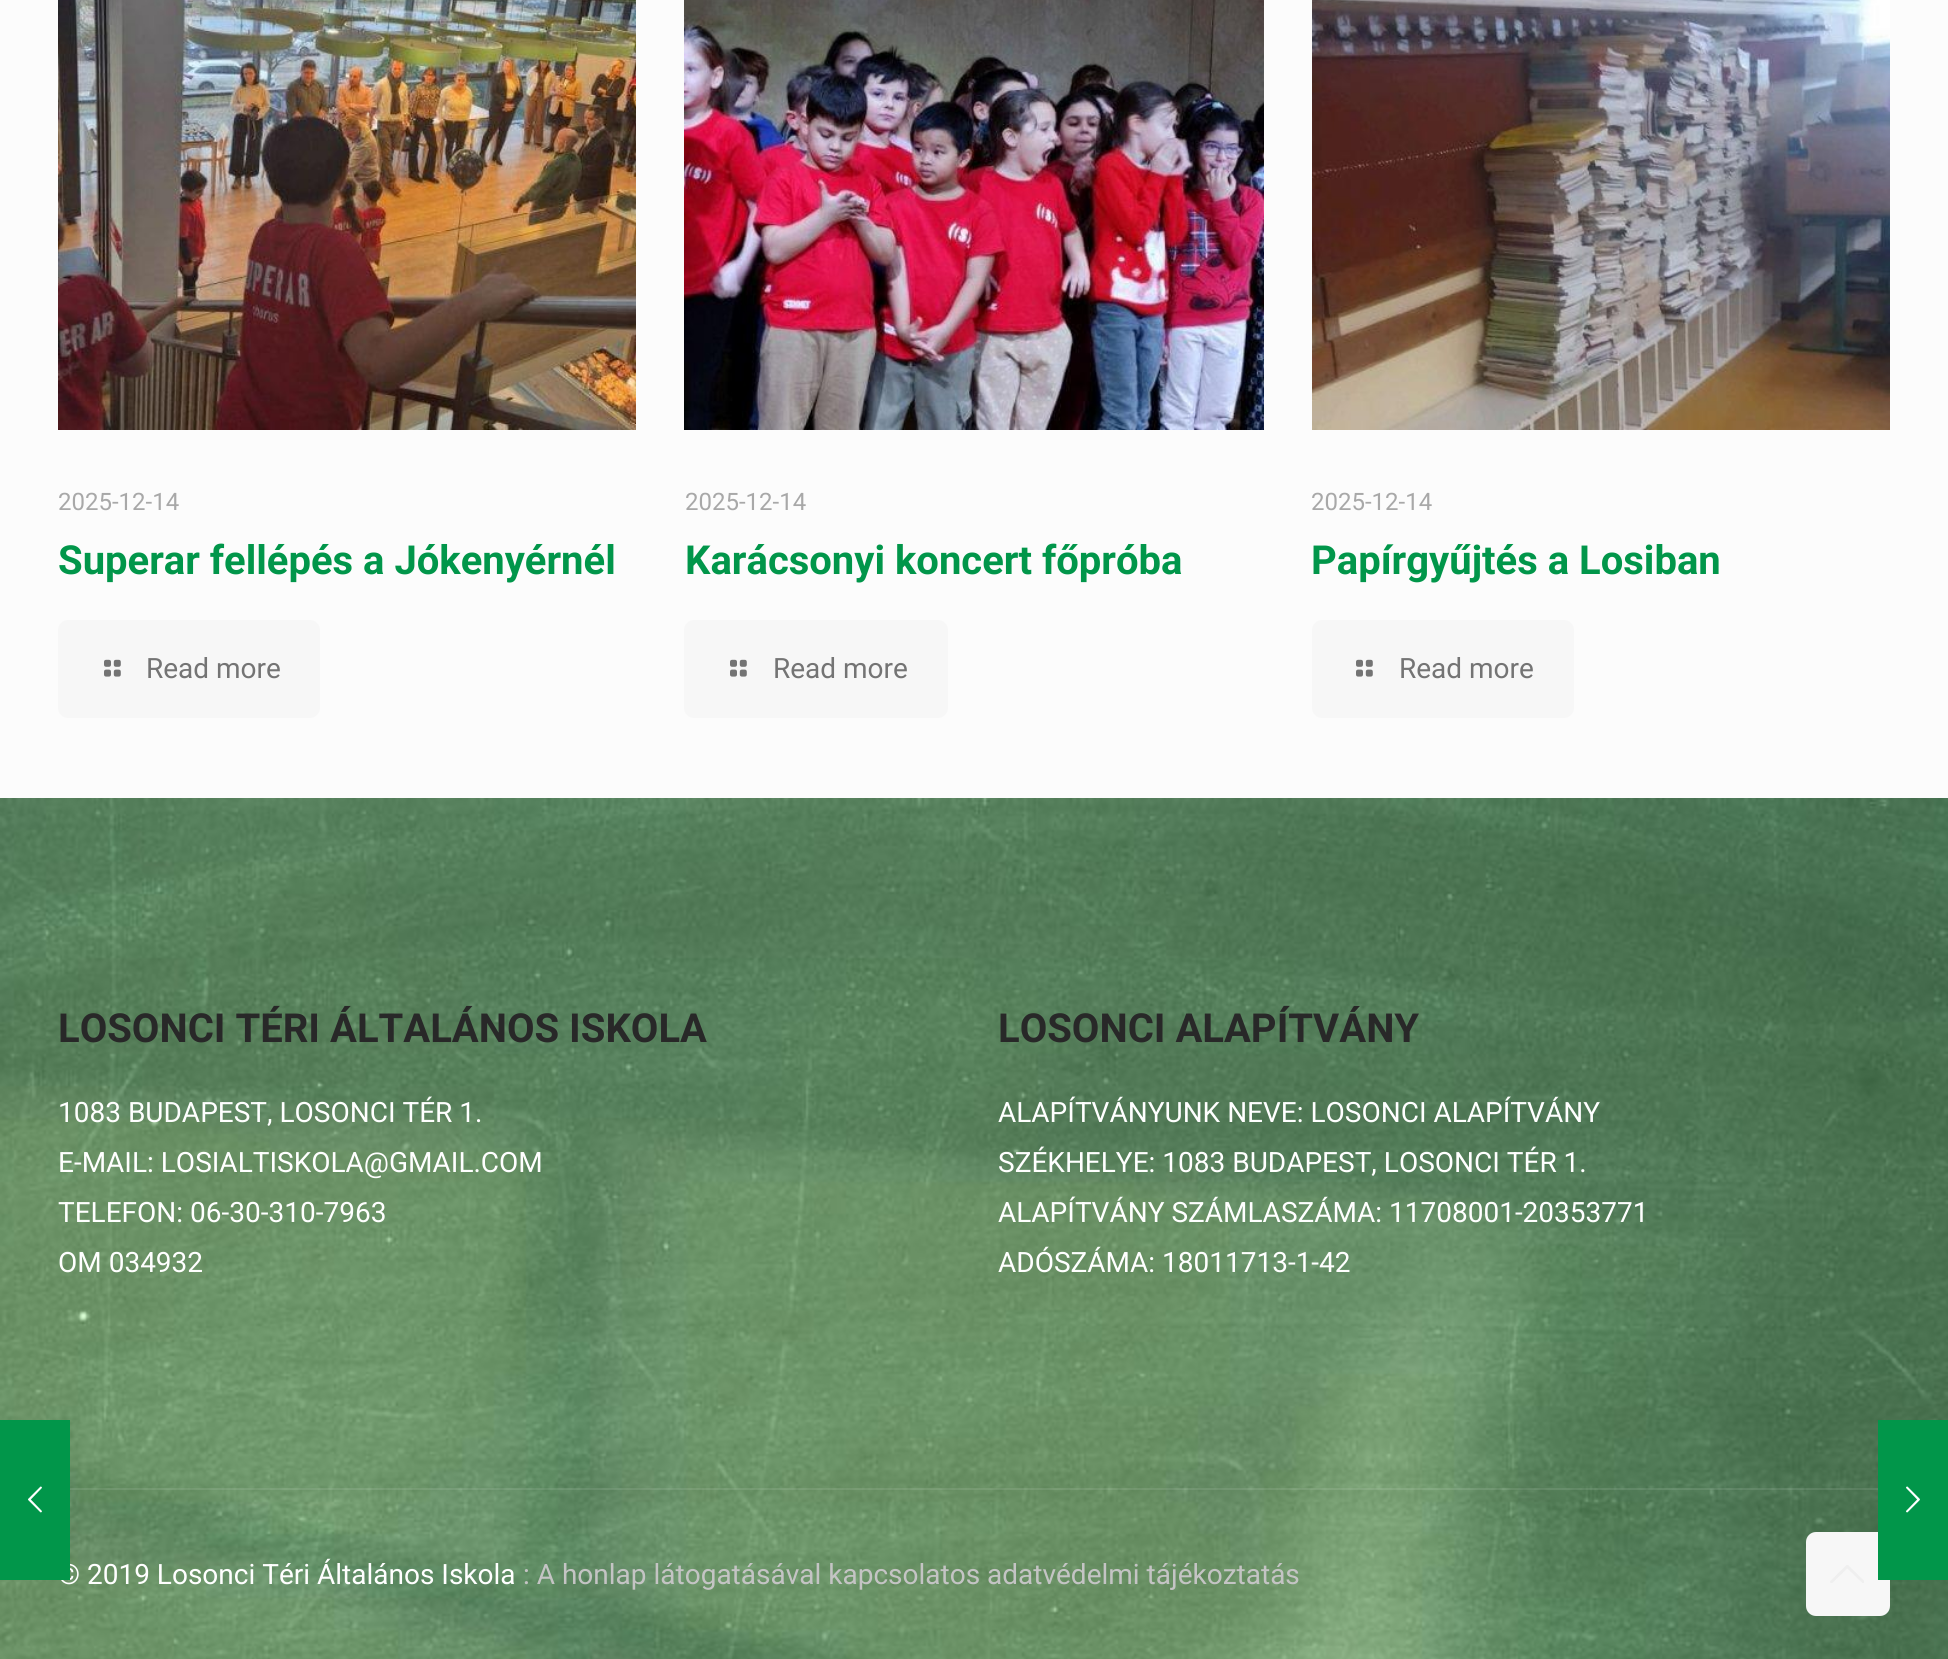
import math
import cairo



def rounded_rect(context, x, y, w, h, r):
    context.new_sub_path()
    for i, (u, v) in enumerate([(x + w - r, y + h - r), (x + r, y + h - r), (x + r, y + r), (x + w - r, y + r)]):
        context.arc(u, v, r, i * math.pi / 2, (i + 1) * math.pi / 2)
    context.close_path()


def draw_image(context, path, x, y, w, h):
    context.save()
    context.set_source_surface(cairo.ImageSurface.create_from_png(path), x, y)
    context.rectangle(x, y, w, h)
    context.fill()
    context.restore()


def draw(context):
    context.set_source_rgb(252 / 255, 252 / 255, 252 / 255)
    context.paint()
    draw_image(context, "images/2.png", 58, 0, 578, 430)
    context.set_source_rgb(247 / 255, 247 / 255, 247 / 255)
    rounded_rect(context, 58, 620, 262, 98, 10)
    context.fill()
    draw_image(context, "images/3.png", 104, 659, 17, 18)
    draw_image(context, "images/4.png", 684, 0, 580, 430)
    rounded_rect(context, 684, 620, 264, 98, 10)
    context.fill()
    draw_image(context, "images/3.png", 730, 659, 17, 18)
    draw_image(context, "images/5.png", 1312, 0, 578, 430)
    rounded_rect(context, 1312, 620, 262, 98, 10)
    context.fill()
    draw_image(context, "images/3.png", 1356, 659, 17, 18)
    draw_image(context, "images/6.png", 0, 798, 1948, 861)
    context.set_source_rgba(1, 1, 1, 0.1)
    context.rectangle(70, 1488, 1808, 2)
    context.fill()
    context.set_source_rgb(247 / 255, 247 / 255, 247 / 255)
    rounded_rect(context, 1806, 1532, 84, 84, 10)
    context.fill()
    draw_image(context, "images/7.png", 1830, 1565, 34, 18)
    context.set_source_rgb(1 / 255, 150 / 255, 74 / 255)
    context.rectangle(1878, 1420, 70, 160)
    context.fill()
    draw_image(context, "images/8.png", 1906, 1486, 14, 27)
    context.select_font_face("Roboto")
    context.set_font_size(24)
    context.set_source_rgb(168 / 255, 168 / 255, 168 / 255)
    context.move_to(58, 510)
    context.show_text("2025-12-14")
    context.select_font_face("Roboto", cairo.FontSlant.NORMAL, cairo.FontWeight.BOLD)
    context.set_font_size(40)
    context.set_source_rgb(1 / 255, 150 / 255, 74 / 255)
    context.move_to(58, 574)
    context.show_text("Superar fellépés a Jókenyérnél")
    context.select_font_face("Roboto")
    context.set_font_size(28)
    context.set_source_rgb(116 / 255, 116 / 255, 116 / 255)
    context.move_to(146, 678)
    context.show_text("Read more")
    context.set_font_size(24)
    context.set_source_rgb(168 / 255, 168 / 255, 168 / 255)
    context.move_to(685, 510)
    context.show_text("2025-12-14")
    context.select_font_face("Roboto", cairo.FontSlant.NORMAL, cairo.FontWeight.BOLD)
    context.set_font_size(40)
    context.set_source_rgb(1 / 255, 150 / 255, 74 / 255)
    context.move_to(685, 574)
    context.show_text("Karácsonyi koncert főpróba")
    context.select_font_face("Roboto")
    context.set_font_size(28)
    context.set_source_rgb(116 / 255, 116 / 255, 116 / 255)
    context.move_to(773, 678)
    context.show_text("Read more")
    context.set_font_size(24)
    context.set_source_rgb(168 / 255, 168 / 255, 168 / 255)
    context.move_to(1311, 510)
    context.show_text("2025-12-14")
    context.select_font_face("Roboto", cairo.FontSlant.NORMAL, cairo.FontWeight.BOLD)
    context.set_font_size(40)
    context.set_source_rgb(1 / 255, 150 / 255, 74 / 255)
    context.move_to(1311, 574)
    context.show_text("Papírgyűjtés a Losiban")
    context.select_font_face("Roboto")
    context.set_font_size(28)
    context.set_source_rgb(116 / 255, 116 / 255, 116 / 255)
    context.move_to(1399, 678)
    context.show_text("Read more")
    context.select_font_face("Roboto", cairo.FontSlant.NORMAL, cairo.FontWeight.BOLD)
    context.set_font_size(40)
    context.set_source_rgb(40 / 255, 40 / 255, 40 / 255)
    context.move_to(58, 1042)
    context.show_text("LOSONCI TÉRI ÁLTALÁNOS ISKOLA")
    context.select_font_face("Roboto")
    context.set_font_size(28)
    context.set_source_rgb(1, 1, 1)
    context.move_to(58, 1122)
    context.show_text("1083 BUDAPEST, LOSONCI TÉR 1.")
    context.move_to(58, 1172)
    context.show_text("E-MAIL: LOSIALTISKOLA@GMAIL.COM")
    context.move_to(58, 1222)
    context.show_text("TELEFON: 06-30-310-7963")
    context.move_to(58, 1272)
    context.show_text("OM 034932")
    context.select_font_face("Roboto", cairo.FontSlant.NORMAL, cairo.FontWeight.BOLD)
    context.set_font_size(40)
    context.set_source_rgb(40 / 255, 40 / 255, 40 / 255)
    context.move_to(998, 1042)
    context.show_text("LOSONCI ALAPÍTVÁNY")
    context.select_font_face("Roboto")
    context.set_font_size(28)
    context.set_source_rgb(1, 1, 1)
    context.move_to(998, 1122)
    context.show_text("ALAPÍTVÁNYUNK NEVE: LOSONCI ALAPÍTVÁNY")
    context.move_to(998, 1172)
    context.show_text("SZÉKHELYE: 1083 BUDAPEST, LOSONCI TÉR 1.")
    context.move_to(998, 1222)
    context.show_text("ALAPÍTVÁNY SZÁMLASZÁMA: 11708001-20353771")
    context.move_to(998, 1272)
    context.show_text("ADÓSZÁMA: 18011713-1-42")
    context.move_to(58, 1584)
    context.show_text("© 2019 Losonci Téri Általános Iskola")
    context.set_source_rgb(1 / 255, 150 / 255, 74 / 255)
    context.rectangle(0, 1420, 70, 160)
    context.fill()
    draw_image(context, "images/1.png", 28, 1486, 14, 27)
    context.set_source_rgb(196 / 255, 196 / 255, 196 / 255)
    context.move_to(523, 1584)
    context.show_text(": A honlap látogatásával kapcsolatos adatvédelmi tájékoztatás")


surface = cairo.ImageSurface(cairo.Format.RGB24, 1948, 1659)
context = cairo.Context(surface)
options = cairo.FontOptions()
options.set_hint_metrics(cairo.HintMetrics.OFF)
options.set_hint_style(cairo.HintStyle.NONE)
context.set_font_options(options)
context.set_miter_limit(4)
draw(context)
surface.write_to_png("out.png")
